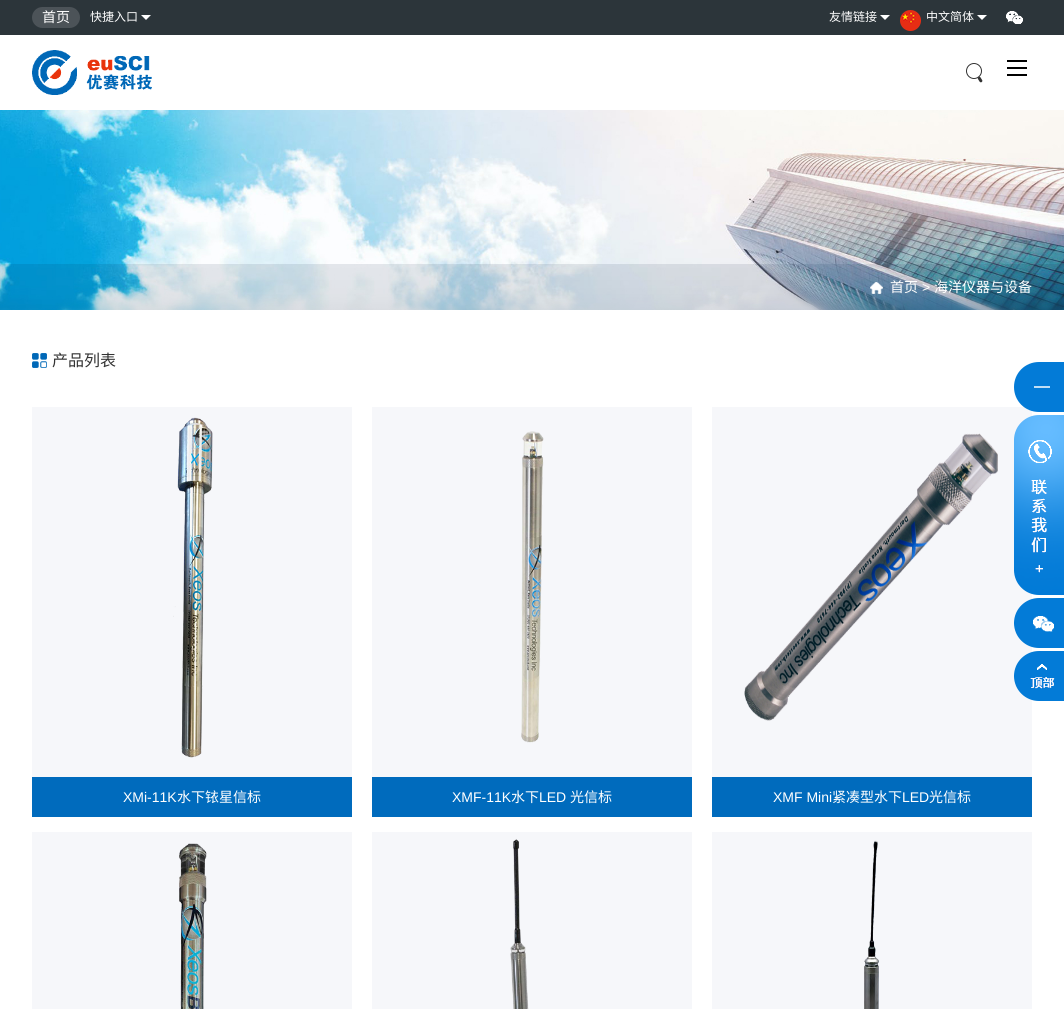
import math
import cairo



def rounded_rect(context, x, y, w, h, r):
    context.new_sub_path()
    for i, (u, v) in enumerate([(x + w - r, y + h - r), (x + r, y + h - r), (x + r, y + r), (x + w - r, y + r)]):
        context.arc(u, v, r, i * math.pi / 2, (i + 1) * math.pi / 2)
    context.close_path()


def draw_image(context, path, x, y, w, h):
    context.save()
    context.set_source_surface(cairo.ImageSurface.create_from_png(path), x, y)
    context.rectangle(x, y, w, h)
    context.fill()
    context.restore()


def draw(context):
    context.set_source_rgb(1, 1, 1)
    context.paint()
    context.set_source_rgb(44 / 255, 53 / 255, 58 / 255)
    context.rectangle(0, 0, 1064, 35)
    context.fill()
    context.set_source_rgb(76 / 255, 83 / 255, 88 / 255)
    rounded_rect(context, 32, 7, 48, 21, 10.5)
    context.fill()
    draw_image(context, "images/1.png", 141, 15, 10, 5)
    draw_image(context, "images/1.png", 880, 15, 10, 5)
    draw_image(context, "images/1.png", 977, 15, 10, 5)
    draw_image(context, "images/2.png", 900, 10, 21, 21)
    draw_image(context, "images/3.png", 1006, 11, 17, 13)
    draw_image(context, "images/4.png", 32, 50, 120, 45)
    draw_image(context, "images/5.png", 966, 63, 17, 20)
    draw_image(context, "images/6.png", 1007, 60, 20, 16)
    draw_image(context, "images/7.png", 0, 110, 1064, 200)
    context.set_source_rgba(0, 20 / 255, 52 / 255, 0.1)
    context.rectangle(0, 264, 1064, 46)
    context.fill()
    draw_image(context, "images/8.png", 870, 282, 13, 12)
    draw_image(context, "images/9.png", 32, 353, 15, 15)
    context.set_source_rgb(246 / 255, 247 / 255, 250 / 255)
    context.rectangle(32, 407, 320, 370)
    context.fill()
    draw_image(context, "images/10.png", 173, 417, 40, 341)
    context.set_source_rgb(0, 107 / 255, 189 / 255)
    context.rectangle(32, 777, 320, 40)
    context.fill()
    context.set_source_rgb(246 / 255, 247 / 255, 250 / 255)
    context.rectangle(372, 407, 320, 370)
    context.fill()
    draw_image(context, "images/11.png", 521, 431, 23, 312)
    context.set_source_rgb(0, 107 / 255, 189 / 255)
    context.rectangle(372, 777, 320, 40)
    context.fill()
    context.set_source_rgb(246 / 255, 247 / 255, 250 / 255)
    context.rectangle(712, 407, 320, 370)
    context.fill()
    draw_image(context, "images/12.png", 744, 433, 254, 288)
    context.set_source_rgb(0, 107 / 255, 189 / 255)
    context.rectangle(712, 777, 320, 40)
    context.fill()
    context.set_source_rgb(246 / 255, 247 / 255, 250 / 255)
    context.rectangle(32, 832, 320, 177)
    context.fill()
    draw_image(context, "images/13.png", 179, 843, 28, 166)
    context.rectangle(372, 832, 320, 177)
    context.fill()
    draw_image(context, "images/14.png", 510, 839, 19, 170)
    context.rectangle(712, 832, 320, 177)
    context.fill()
    draw_image(context, "images/15.png", 864, 840, 15, 169)
    context.set_source_rgb(3 / 255, 123 / 255, 215 / 255)
    context.new_path()
    context.move_to(1039, 362)
    context.line_to(1064, 362)
    context.line_to(1064, 412)
    context.line_to(1039, 412)
    context.curve_to(1025, 412, 1014, 401, 1014, 387)
    context.curve_to(1014, 373, 1025, 362, 1039, 362)
    context.close_path()
    context.fill()
    context.set_source_rgb(192 / 255, 222 / 255, 245 / 255)
    context.rectangle(1034, 386, 16, 2)
    context.fill()
    draw_image(context, "images/16.png", 1014, 415, 50, 180)
    draw_image(context, "images/17.png", 1014, 598, 50, 50)
    draw_image(context, "images/18.png", 1014, 651, 50, 50)
    context.select_font_face("Noto Sans CJK SC")
    context.set_font_size(14)
    context.set_source_rgb(1, 1, 1)
    context.move_to(42, 22)
    context.show_text("首页")
    context.set_font_size(12)
    context.move_to(90, 21)
    context.show_text("快捷入口")
    context.move_to(829, 21)
    context.show_text("友情链接")
    context.move_to(926, 21)
    context.show_text("中文简体")
    context.set_font_size(14)
    context.move_to(890, 292)
    context.show_text("首页")
    context.select_font_face("Liberation Sans")
    context.move_to(922, 292)
    context.show_text(">")
    context.select_font_face("Noto Sans CJK SC")
    context.move_to(934, 292)
    context.show_text("海洋仪器与设备")
    context.set_font_size(16)
    context.set_source_rgb(51 / 255, 51 / 255, 51 / 255)
    context.move_to(52, 366)
    context.show_text("产品列表")
    context.select_font_face("Liberation Sans")
    context.set_font_size(14)
    context.set_source_rgb(1, 1, 1)
    context.move_to(123, 802)
    context.show_text("XMi-11K")
    context.select_font_face("Noto Sans CJK SC")
    context.move_to(177, 802)
    context.show_text("水下铱星信标")
    context.select_font_face("Liberation Sans")
    context.move_to(452, 802)
    context.show_text("XMF-11K")
    context.select_font_face("Noto Sans CJK SC")
    context.move_to(511, 802)
    context.show_text("水下")
    context.select_font_face("Liberation Sans")
    context.move_to(539, 802)
    context.show_text("LED")
    context.select_font_face("Noto Sans CJK SC")
    context.move_to(570, 802)
    context.show_text("光信标")
    context.select_font_face("Liberation Sans")
    context.move_to(773, 802)
    context.show_text("XMF Mini")
    context.select_font_face("Noto Sans CJK SC")
    context.move_to(832, 802)
    context.show_text("紧凑型水下")
    context.select_font_face("Liberation Sans")
    context.move_to(902, 802)
    context.show_text("LED")
    context.select_font_face("Noto Sans CJK SC")
    context.move_to(929, 802)
    context.show_text("光信标")


surface = cairo.ImageSurface(cairo.Format.RGB24, 1064, 1009)
context = cairo.Context(surface)
options = cairo.FontOptions()
options.set_hint_metrics(cairo.HintMetrics.OFF)
options.set_hint_style(cairo.HintStyle.NONE)
context.set_font_options(options)
context.set_miter_limit(4)
draw(context)
surface.write_to_png("out.png")
